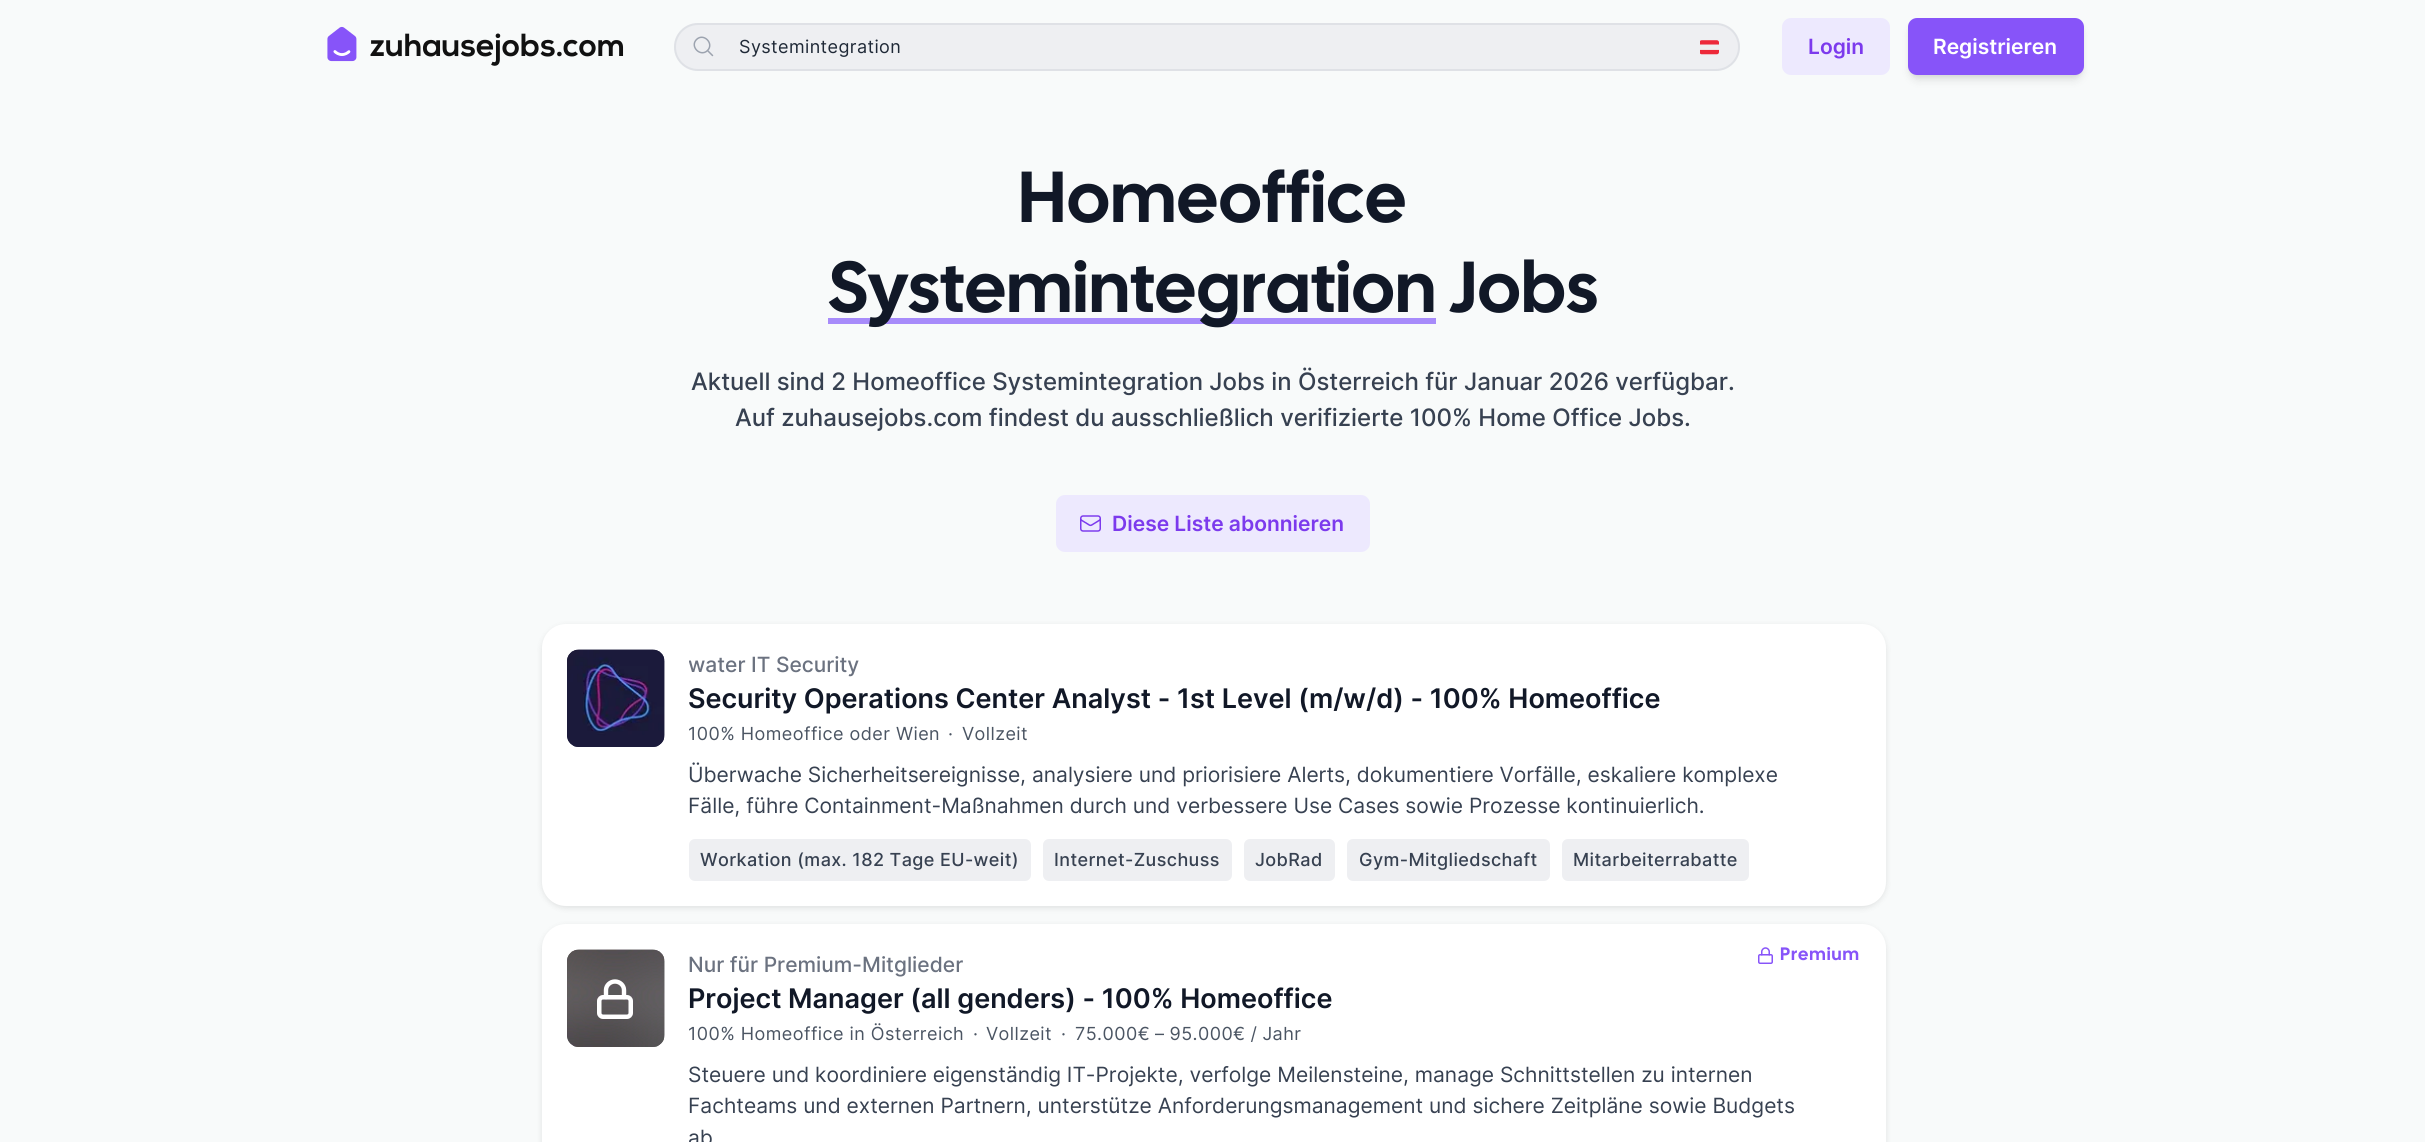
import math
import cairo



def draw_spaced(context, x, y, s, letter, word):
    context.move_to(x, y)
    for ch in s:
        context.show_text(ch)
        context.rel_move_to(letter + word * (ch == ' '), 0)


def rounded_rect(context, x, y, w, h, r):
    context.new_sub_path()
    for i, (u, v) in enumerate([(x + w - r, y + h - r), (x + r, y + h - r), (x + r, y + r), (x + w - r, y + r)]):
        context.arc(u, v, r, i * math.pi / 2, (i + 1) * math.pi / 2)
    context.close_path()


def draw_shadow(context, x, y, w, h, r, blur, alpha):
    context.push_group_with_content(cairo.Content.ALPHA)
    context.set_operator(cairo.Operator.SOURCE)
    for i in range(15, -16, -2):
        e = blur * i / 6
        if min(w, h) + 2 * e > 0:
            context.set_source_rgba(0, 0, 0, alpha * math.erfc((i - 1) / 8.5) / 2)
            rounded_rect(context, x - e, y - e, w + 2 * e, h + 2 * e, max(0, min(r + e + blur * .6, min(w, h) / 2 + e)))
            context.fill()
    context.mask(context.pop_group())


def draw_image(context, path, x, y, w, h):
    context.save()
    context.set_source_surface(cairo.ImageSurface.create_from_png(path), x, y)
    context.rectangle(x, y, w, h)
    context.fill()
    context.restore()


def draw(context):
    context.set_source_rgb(248 / 255, 250 / 255, 250 / 255)
    context.paint()
    draw_image(context, "images/1.png", 327, 26, 297, 40)
    context.set_source_rgb(238 / 255, 239 / 255, 242 / 255)
    rounded_rect(context, 674, 23, 1066, 48, 24)
    context.fill()
    context.new_path()
    context.move_to(712.5, 55.5)
    context.line_to(707.5, 50.5)
    context.move_to(707.5, 50.5)
    context.curve_to(714.5, 43.5, 703.5, 32.5, 696.5, 39.5)
    context.curve_to(689.5, 46.5, 700.5, 57.5, 707.5, 50.5)
    context.close_path()
    context.set_source_rgb(156 / 255, 163 / 255, 175 / 255)
    context.set_line_width(1.5)
    context.set_line_cap(cairo.LineCap.ROUND)
    context.set_line_join(cairo.LineJoin.ROUND)
    context.stroke()
    rounded_rect(context, 675, 24, 1064, 46, 23)
    context.set_source_rgba(209 / 255, 213 / 255, 219 / 255, 0.5)
    context.set_line_width(2)
    context.set_line_cap(cairo.LineCap.BUTT)
    context.set_line_join(cairo.LineJoin.MITER)
    context.stroke()
    draw_image(context, "images/2.png", 1700, 40, 19, 15)
    context.set_source_rgb(237 / 255, 233 / 255, 254 / 255)
    rounded_rect(context, 1782, 18, 108, 57, 9)
    context.fill()
    context.set_source_rgb(0, 0, 0)
    draw_shadow(context, 1911, 24, 170, 51, 6, 3, 0.1)
    draw_shadow(context, 1910, 26, 172, 54, 8, 4.5, 0.1)
    context.set_source_rgb(135 / 255, 84 / 255, 249 / 255)
    rounded_rect(context, 1908, 18, 176, 57, 9)
    context.fill()
    context.set_source_rgb(167 / 255, 139 / 255, 250 / 255)
    context.rectangle(828, 318, 608, 6)
    context.fill()
    context.set_source_rgb(237 / 255, 233 / 255, 254 / 255)
    rounded_rect(context, 1056, 495, 314, 57, 9)
    context.fill()
    draw_image(context, "images/3.png", 1080, 515, 21, 17)
    context.set_source_rgb(0, 0, 0)
    draw_shadow(context, 542, 626, 1344, 282, 24, 3, 0.1)
    context.set_source_rgb(1, 1, 1)
    rounded_rect(context, 542, 624, 1344, 282, 24)
    context.fill()
    draw_image(context, "images/4.png", 567, 649, 98, 98)
    draw_image(context, "images/5.png", 567, 649, 98, 98)
    context.set_source_rgb(238 / 255, 239 / 255, 242 / 255)
    rounded_rect(context, 689, 839, 342, 42, 6)
    context.fill()
    rounded_rect(context, 1043, 839, 189, 42, 6)
    context.fill()
    rounded_rect(context, 1244, 839, 91, 42, 6)
    context.fill()
    rounded_rect(context, 1347, 839, 203, 42, 6)
    context.fill()
    rounded_rect(context, 1562, 839, 187, 42, 6)
    context.fill()
    context.set_source_rgb(0, 0, 0)
    draw_shadow(context, 542, 926, 1344, 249, 24, 3, 0.1)
    context.set_source_rgb(1, 1, 1)
    rounded_rect(context, 542, 924, 1344, 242, 24)
    context.fill()
    draw_image(context, "images/6.png", 567, 949, 98, 98)
    draw_image(context, "images/7.png", 567, 949, 98, 98)
    rounded_rect(context, 599.25, 997.25, 31.5, 19.5, 3.75)
    context.set_line_width(4.5)
    context.stroke()
    context.new_path()
    context.move_to(606, 997)
    context.line_to(606, 990)
    context.curve_to(606, 985.5, 610, 981.5, 615, 981.5)
    context.curve_to(620, 981.5, 624, 985.5, 624, 990)
    context.line_to(624, 997)
    context.set_line_width(4.4)
    context.set_line_cap(cairo.LineCap.ROUND)
    context.set_line_join(cairo.LineJoin.ROUND)
    context.stroke()
    draw_image(context, "images/8.png", 1758, 947, 15, 17)
    context.select_font_face("Inter")
    context.set_font_size(18)
    context.set_source_rgb(31 / 255, 41 / 255, 55 / 255)
    draw_spaced(context, 739, 53, "Systemintegration", 0.4, 0)
    context.select_font_face("Inter SemiBold")
    context.set_font_size(21)
    context.set_source_rgb(124 / 255, 58 / 255, 237 / 255)
    context.move_to(1808, 54)
    context.show_text("Login")
    context.set_source_rgb(1, 1, 1)
    context.move_to(1933, 54)
    context.show_text("Registrieren")
    context.select_font_face("Cal Sans SemiBold")
    context.set_font_size(72)
    context.set_source_rgb(17 / 255, 24 / 255, 39 / 255)
    draw_spaced(context, 1018, 222, "Homeoffice", 0.75, 0)
    draw_spaced(context, 828, 312, "Systemintegration Jobs", 0.75, 0)
    context.select_font_face("Inter Medium")
    context.set_font_size(24)
    context.set_source_rgb(55 / 255, 65 / 255, 81 / 255)
    context.move_to(691, 390)
    context.show_text("Aktuell sind 2 Homeoffice Systemintegration Jobs in Österreich für Januar 2026 verfügbar.")
    context.move_to(735, 426)
    context.show_text("Auf zuhausejobs.com findest du ausschließlich verifizierte 100% Home Office Jobs.")
    context.select_font_face("Inter SemiBold")
    context.set_font_size(21)
    context.set_source_rgb(124 / 255, 58 / 255, 237 / 255)
    context.move_to(1112, 531)
    context.show_text("Diese Liste abonnieren")
    context.save()
    context.rectangle(689, 653, 171, 24)
    context.clip()
    context.select_font_face("Inter Medium")
    context.set_source_rgb(107 / 255, 114 / 255, 128 / 255)
    context.move_to(688, 672)
    context.show_text("water IT Security")
    context.restore()
    context.set_font_size(27)
    context.set_source_rgb(17 / 255, 24 / 255, 39 / 255)
    context.move_to(688, 708)
    context.show_text("Security Operations Center Analyst - 1st Level (m/w/d) - 100% Homeoffice")
    context.select_font_face("Inter")
    context.set_font_size(18)
    context.set_source_rgb(75 / 255, 85 / 255, 99 / 255)
    draw_spaced(context, 688, 740, "100% Homeoffice oder Wien", 0.45, 0)
    draw_spaced(context, 948, 740, "·", 0.45, 0)
    draw_spaced(context, 962, 740, "Vollzeit", 0.45, 0)
    context.set_font_size(21)
    context.set_source_rgb(55 / 255, 65 / 255, 81 / 255)
    context.move_to(688, 782)
    context.show_text("Überwache Sicherheitsereignisse, analysiere und priorisiere Alerts, dokumentiere Vorfälle, eskaliere komplexe")
    context.move_to(688, 813)
    context.show_text("Fälle, führe Containment-Maßnahmen durch und verbessere Use Cases sowie Prozesse kontinuierlich.")
    context.select_font_face("Inter Medium")
    context.set_font_size(18)
    draw_spaced(context, 700, 866, "Workation (max. 182 Tage EU-weit)", 0.4, 0)
    draw_spaced(context, 1054, 866, "Internet-Zuschuss", 0.4, 0)
    draw_spaced(context, 1255, 866, "JobRad", 0.4, 0)
    draw_spaced(context, 1359, 866, "Gym-Mitgliedschaft", 0.4, 0)
    draw_spaced(context, 1573, 866, "Mitarbeiterrabatte", 0.4, 0)
    context.select_font_face("Cal Sans SemiBold")
    context.set_source_rgb(135 / 255, 84 / 255, 249 / 255)
    draw_spaced(context, 1780, 960, "Premium", 1, 0)
    context.select_font_face("Inter Medium")
    context.set_font_size(21)
    context.set_source_rgb(107 / 255, 114 / 255, 128 / 255)
    context.move_to(688, 972)
    context.show_text("Nur für Premium-Mitglieder")
    context.select_font_face("Inter SemiBold")
    context.set_font_size(27)
    context.set_source_rgb(17 / 255, 24 / 255, 39 / 255)
    context.move_to(688, 1008)
    context.show_text("Project Manager (all genders) - 100% Homeoffice")
    context.select_font_face("Inter")
    context.set_font_size(18)
    context.set_source_rgb(75 / 255, 85 / 255, 99 / 255)
    draw_spaced(context, 688, 1040, "100% Homeoffice in Österreich", 0.45, 0)
    draw_spaced(context, 973, 1040, "·", 0.45, 0)
    draw_spaced(context, 986, 1040, "Vollzeit", 0.45, 0)
    draw_spaced(context, 1061, 1040, "·", 0.45, 0)
    draw_spaced(context, 1075, 1040, "75.000€ – 95.000€ / Jahr", 0.45, -0.5)
    context.set_font_size(21)
    context.set_source_rgb(55 / 255, 65 / 255, 81 / 255)
    context.move_to(688, 1082)
    context.show_text("Steuere und koordiniere eigenständig IT-Projekte, verfolge Meilensteine, manage Schnittstellen zu internen")
    context.move_to(688, 1113)
    context.show_text("Fachteams und externen Partnern, unterstütze Anforderungsmanagement und sichere Zeitpläne sowie Budgets")
    context.move_to(688, 1145)
    context.show_text("ab")


surface = cairo.ImageSurface(cairo.Format.RGB24, 2425, 1142)
context = cairo.Context(surface)
options = cairo.FontOptions()
options.set_hint_metrics(cairo.HintMetrics.OFF)
options.set_hint_style(cairo.HintStyle.NONE)
context.set_font_options(options)
context.set_miter_limit(4)
draw(context)
surface.write_to_png("out.png")
